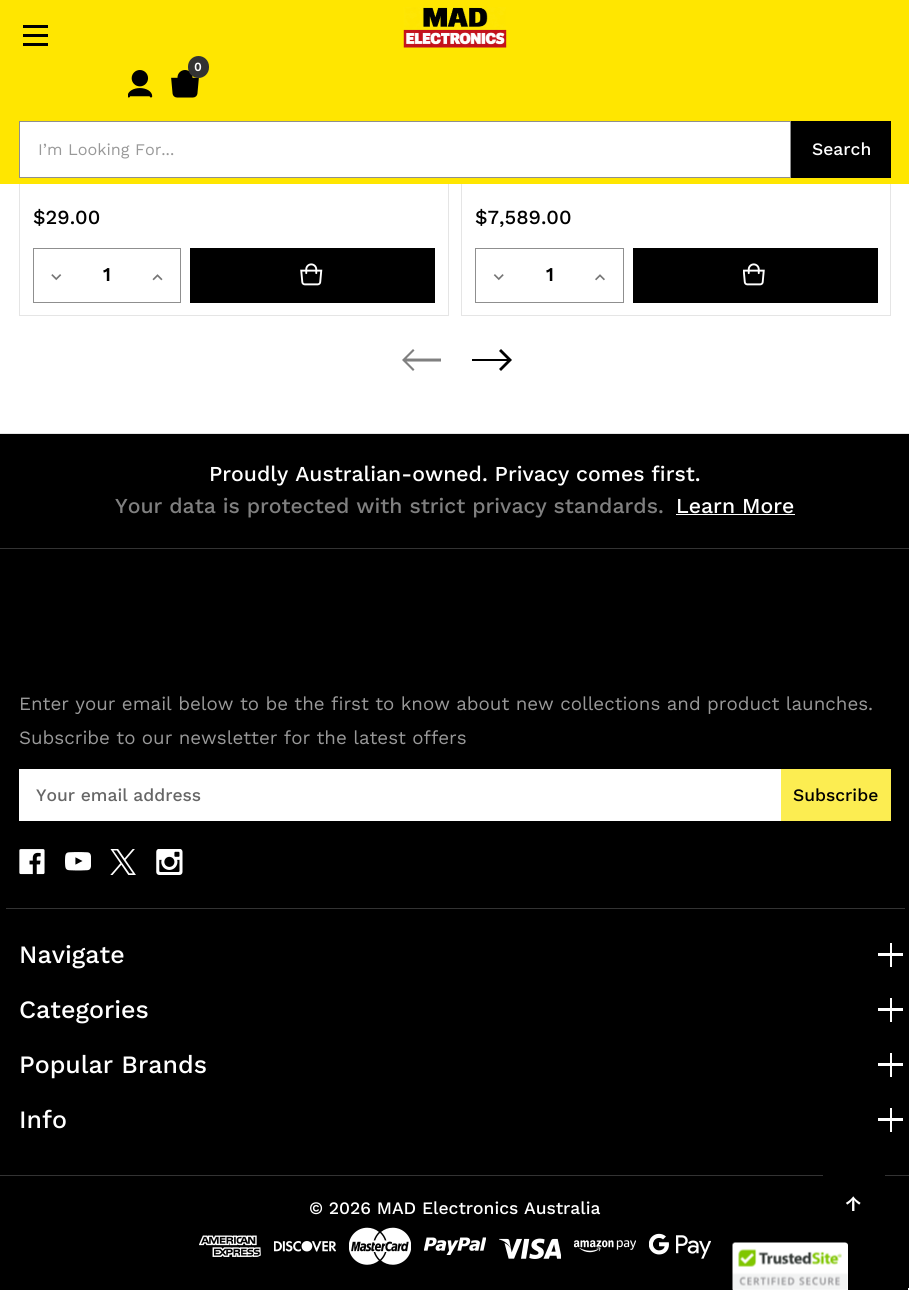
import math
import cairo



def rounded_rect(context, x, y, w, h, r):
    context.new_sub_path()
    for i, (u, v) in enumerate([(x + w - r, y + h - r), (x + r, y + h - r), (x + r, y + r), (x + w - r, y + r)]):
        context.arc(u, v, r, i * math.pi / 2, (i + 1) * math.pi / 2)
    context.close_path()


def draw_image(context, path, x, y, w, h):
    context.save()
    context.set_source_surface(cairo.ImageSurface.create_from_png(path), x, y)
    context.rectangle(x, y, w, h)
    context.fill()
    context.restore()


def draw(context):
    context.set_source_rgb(1, 1, 1)
    context.paint()
    context.rectangle(19.5, -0.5, 429, 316)
    context.set_source_rgb(229 / 255, 229 / 255, 229 / 255)
    context.set_line_width(1)
    context.stroke()
    context.rectangle(461.5, -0.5, 429, 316)
    context.stroke()
    context.set_source_rgb(1, 230 / 255, 0)
    context.rectangle(0, 0, 909, 184)
    context.fill()
    context.set_source_rgb(0, 0, 0)
    context.rectangle(23, 34, 25, 3)
    context.fill()
    context.rectangle(23, 25, 25, 3)
    context.fill()
    context.rectangle(23, 43, 25, 3)
    context.fill()
    draw_image(context, "images/1.png", 403, 7, 104, 41)
    draw_image(context, "images/2.png", 171, 70, 28, 28)
    context.set_source_rgb(51 / 255, 51 / 255, 51 / 255)
    rounded_rect(context, 188, 56, 21, 22, 10.5)
    context.fill()
    draw_image(context, "images/3.png", 128, 70, 25, 28)
    context.set_source_rgb(1, 1, 1)
    context.rectangle(19.5, 121.5, 771, 56)
    context.fill_preserve()
    context.set_source_rgb(143 / 255, 143 / 255, 143 / 255)
    context.stroke()
    context.set_source_rgb(0, 0, 0)
    context.rectangle(791, 121, 100, 57)
    context.fill()
    context.rectangle(33.5, 248.5, 147, 54)
    context.set_source_rgb(143 / 255, 143 / 255, 143 / 255)
    context.stroke()
    draw_image(context, "images/4.png", 51, 274, 11, 7)
    draw_image(context, "images/5.png", 152, 274, 11, 7)
    context.set_source_rgb(0, 0, 0)
    context.rectangle(190, 248, 245, 55)
    context.fill()
    draw_image(context, "images/6.png", 300, 263, 23, 23)
    context.rectangle(475.5, 248.5, 148, 54)
    context.set_source_rgb(143 / 255, 143 / 255, 143 / 255)
    context.stroke()
    draw_image(context, "images/7.png", 493, 274, 11, 7)
    draw_image(context, "images/8.png", 595, 274, 10, 7)
    context.set_source_rgb(0, 0, 0)
    context.rectangle(633, 248, 245, 55)
    context.fill()
    draw_image(context, "images/9.png", 743, 263, 22, 23)
    context.save()
    context.rectangle(401, 349, 40, 22)
    context.clip()
    context.set_source_rgb(128 / 255, 128 / 255, 128 / 255)
    context.new_path()
    context.move_to(413, 349)
    context.line_to(414.5, 350.5)
    context.line_to(406.5, 358.5)
    context.line_to(442, 358.5)
    context.line_to(442, 361.5)
    context.line_to(406.5, 361.5)
    context.line_to(414.5, 369.5)
    context.line_to(413, 371)
    context.line_to(402, 360)
    context.close_path()
    context.fill()
    context.restore()
    context.new_path()
    context.move_to(501, 349)
    context.line_to(499, 351)
    context.line_to(507, 359)
    context.line_to(472, 359)
    context.line_to(472, 361)
    context.line_to(507, 361)
    context.line_to(499, 369)
    context.line_to(501, 371)
    context.line_to(512, 360)
    context.close_path()
    context.fill()
    context.rectangle(0, 434, 909, 856)
    context.fill()
    context.set_source_rgb(229 / 255, 229 / 255, 229 / 255)
    context.rectangle(0, 433, 909, 1)
    context.fill()
    context.set_source_rgb(51 / 255, 51 / 255, 51 / 255)
    context.rectangle(0, 548, 909, 1)
    context.fill()
    context.set_source_rgb(1, 1, 1)
    context.rectangle(676, 514, 119, 1)
    context.fill()
    context.set_source_rgb(51 / 255, 51 / 255, 51 / 255)
    context.rectangle(6, 908, 899, 1)
    context.fill()
    context.set_source_rgb(1, 1, 1)
    context.rectangle(19, 769, 762, 52)
    context.fill()
    context.set_source_rgb(252 / 255, 237 / 255, 81 / 255)
    context.rectangle(781, 769, 110, 52)
    context.fill()
    draw_image(context, "images/10.png", 19, 849, 26, 26)
    draw_image(context, "images/11.png", 65, 852, 26, 19)
    draw_image(context, "images/12.png", 110, 849, 26, 26)
    draw_image(context, "images/13.png", 156, 849, 27, 26)
    context.set_source_rgb(1, 1, 1)
    context.rectangle(878, 953, 25, 3)
    context.fill()
    context.rectangle(890, 943, 2, 24)
    context.fill()
    context.rectangle(878, 1008, 25, 3)
    context.fill()
    context.rectangle(890, 998, 2, 24)
    context.fill()
    context.rectangle(878, 1063, 25, 3)
    context.fill()
    context.rectangle(890, 1053, 2, 24)
    context.fill()
    context.rectangle(878, 1118, 25, 3)
    context.fill()
    context.rectangle(890, 1108, 2, 24)
    context.fill()
    context.set_source_rgb(51 / 255, 51 / 255, 51 / 255)
    context.rectangle(0, 1175, 909, 1)
    context.fill()
    draw_image(context, "images/14.png", 199, 1235, 62, 22)
    draw_image(context, "images/15.png", 274, 1241, 62, 11)
    draw_image(context, "images/16.png", 349, 1227, 62, 38)
    draw_image(context, "images/17.png", 424, 1237, 62, 18)
    draw_image(context, "images/18.png", 499, 1238, 62, 21)
    draw_image(context, "images/19.png", 574, 1240, 62, 13)
    draw_image(context, "images/20.png", 649, 1233, 62, 26)
    context.set_source_rgb(0, 0, 0)
    context.rectangle(823, 1175, 62, 1)
    context.fill()
    context.set_source_rgb(1, 1, 1)
    context.new_path()
    context.move_to(735.5, 1243)
    context.line_to(845.5, 1243)
    context.curve_to(847, 1243, 848, 1244, 848, 1245.5)
    context.line_to(848, 1290)
    context.line_to(733, 1290)
    context.line_to(733, 1245.5)
    context.curve_to(733, 1244, 734, 1243, 735.5, 1243)
    context.close_path()
    context.fill()
    draw_image(context, "images/21.png", 732, 1242, 116, 48)
    context.set_source_rgb(245 / 255, 245 / 255, 245 / 255)
    context.rectangle(908, 1288, 1, 2)
    context.fill()
    context.select_font_face("Work Sans", cairo.FontSlant.NORMAL, cairo.FontWeight.BOLD)
    context.set_font_size(12)
    context.set_source_rgb(1, 1, 1)
    context.move_to(194, 71)
    context.show_text("0")
    context.select_font_face("Work Sans")
    context.set_font_size(16.25)
    context.set_source_rgb(153 / 255, 153 / 255, 153 / 255)
    context.move_to(38, 155)
    context.show_text("I’m Looking For...")
    context.select_font_face("Work Sans Medium")
    context.set_font_size(17.5)
    context.set_source_rgb(1, 1, 1)
    context.move_to(812, 155)
    context.show_text("Search")
    context.set_font_size(20)
    context.set_source_rgb(0, 0, 0)
    context.move_to(33, 224)
    context.show_text("$29.00")
    context.select_font_face("Work Sans", cairo.FontSlant.NORMAL, cairo.FontWeight.BOLD)
    context.set_font_size(18.75)
    context.move_to(103, 281)
    context.show_text("1")
    context.select_font_face("Work Sans Medium")
    context.set_font_size(20)
    context.move_to(475, 224)
    context.show_text("$7,589.00")
    context.select_font_face("Work Sans", cairo.FontSlant.NORMAL, cairo.FontWeight.BOLD)
    context.set_font_size(18.75)
    context.move_to(546, 281)
    context.show_text("1")
    context.select_font_face("Work Sans Medium")
    context.set_font_size(21.25)
    context.set_source_rgb(1, 1, 1)
    context.move_to(209, 481)
    context.show_text("Proudly Australian-owned. Privacy comes first.")
    context.set_source_rgb(128 / 255, 128 / 255, 128 / 255)
    context.move_to(115, 513)
    context.show_text("Your data is protected with strict privacy standards.")
    context.set_source_rgb(1, 1, 1)
    context.move_to(676, 513)
    context.show_text("Learn More")
    context.select_font_face("Work Sans")
    context.set_font_size(18.75)
    context.set_source_rgb(153 / 255, 153 / 255, 153 / 255)
    context.move_to(19, 710)
    context.show_text("Enter your email below to be the first to know about new collections and product launches.")
    context.move_to(19, 744)
    context.show_text("Subscribe to our newsletter for the latest offers")
    context.select_font_face("Work Sans Medium")
    context.set_font_size(17.5)
    context.set_source_rgb(102 / 255, 102 / 255, 102 / 255)
    context.move_to(36, 801)
    context.show_text("Your email address")
    context.set_source_rgb(0, 0, 0)
    context.move_to(793, 801)
    context.show_text("Subscribe")
    context.set_font_size(25)
    context.set_source_rgb(1, 1, 1)
    context.move_to(19, 963)
    context.show_text("Navigate")
    context.move_to(19, 1018)
    context.show_text("Categories")
    context.move_to(19, 1073)
    context.show_text("Popular Brands")
    context.move_to(19, 1128)
    context.show_text("Info")
    context.set_font_size(17.5)
    context.move_to(309, 1214)
    context.show_text("© 2026 MAD Electronics Australia")
    context.set_font_size(22)
    context.move_to(845, 1211)
    context.show_text("↑")


surface = cairo.ImageSurface(cairo.Format.RGB24, 909, 1290)
context = cairo.Context(surface)
options = cairo.FontOptions()
options.set_hint_metrics(cairo.HintMetrics.OFF)
options.set_hint_style(cairo.HintStyle.NONE)
context.set_font_options(options)
context.set_miter_limit(4)
draw(context)
surface.write_to_png("out.png")
